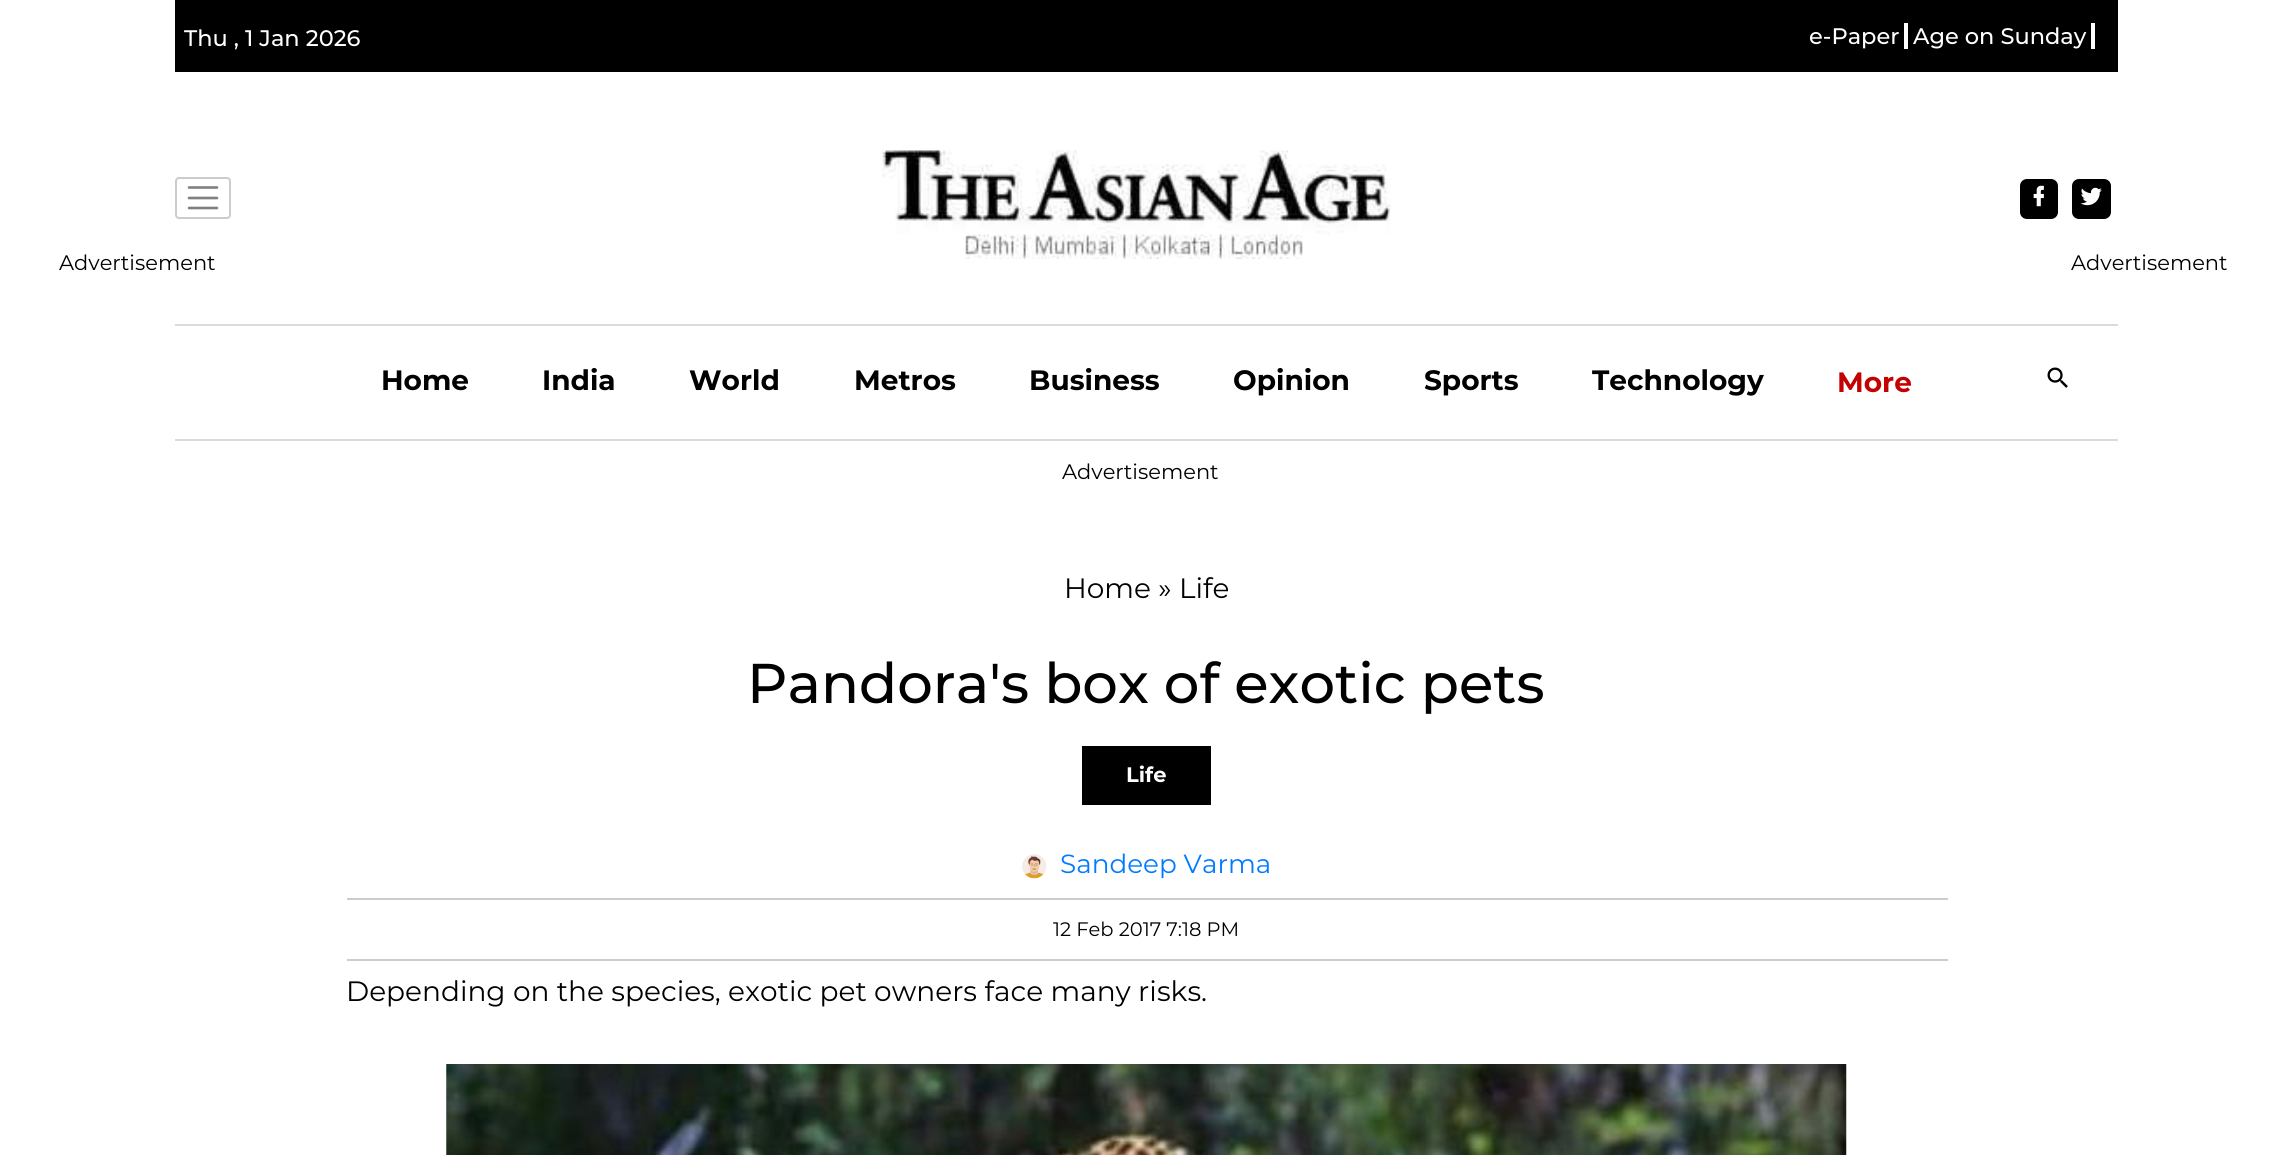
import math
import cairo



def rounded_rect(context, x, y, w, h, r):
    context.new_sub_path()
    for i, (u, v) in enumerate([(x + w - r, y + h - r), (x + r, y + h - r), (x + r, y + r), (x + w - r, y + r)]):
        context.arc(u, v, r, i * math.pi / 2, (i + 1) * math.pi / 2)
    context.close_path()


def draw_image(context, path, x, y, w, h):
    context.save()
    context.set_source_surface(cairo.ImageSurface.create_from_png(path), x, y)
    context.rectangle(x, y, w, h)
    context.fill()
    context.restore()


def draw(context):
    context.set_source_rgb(1, 1, 1)
    context.paint()
    context.set_source_rgb(0, 0, 0)
    context.rectangle(175, 0, 1943, 72)
    context.fill()
    context.set_source_rgb(1, 1, 1)
    context.rectangle(1904, 23, 4, 26)
    context.fill()
    context.rectangle(2091, 23, 4, 26)
    context.fill()
    context.set_source_rgb(219 / 255, 219 / 255, 219 / 255)
    context.rectangle(175, 324, 1943, 2)
    context.fill()
    context.new_path()
    context.move_to(189, 187.5)
    context.line_to(217, 187.5)
    context.move_to(189, 198)
    context.line_to(217, 198)
    context.move_to(189, 208)
    context.line_to(217, 208)
    context.set_source_rgb(128 / 255, 128 / 255, 128 / 255)
    context.set_line_width(2.6)
    context.set_line_cap(cairo.LineCap.ROUND)
    context.stroke()
    rounded_rect(context, 176, 178, 54, 40, 3)
    context.set_source_rgb(204 / 255, 204 / 255, 204 / 255)
    context.set_line_width(2)
    context.set_line_cap(cairo.LineCap.BUTT)
    context.stroke()
    draw_image(context, "images/1.png", 882, 150, 509, 109)
    context.set_source_rgb(0, 0, 0)
    rounded_rect(context, 2020, 179, 38, 40, 7)
    context.fill()
    draw_image(context, "images/2.png", 2033, 185, 11, 22)
    rounded_rect(context, 2072, 179, 39, 40, 7)
    context.fill()
    draw_image(context, "images/3.png", 2080, 187, 22, 19)
    context.set_source_rgb(219 / 255, 219 / 255, 219 / 255)
    context.rectangle(175, 439, 1943, 2)
    context.fill()
    draw_image(context, "images/4.png", 2047, 367, 21, 21)
    context.set_source_rgb(0, 0, 0)
    context.rectangle(1082, 746, 129, 59)
    context.fill()
    draw_image(context, "images/5.png", 1022, 854, 25, 25)
    context.set_source_rgb(204 / 255, 204 / 255, 204 / 255)
    context.rectangle(347, 898, 1601, 2)
    context.fill()
    context.rectangle(347, 959, 1601, 2)
    context.fill()
    draw_image(context, "images/6.png", 446, 1064, 1401, 91)
    context.select_font_face("Montserrat")
    context.set_font_size(21)
    context.set_source_rgb(0, 0, 0)
    context.move_to(59, 270)
    context.show_text("Advertisement")
    context.select_font_face("Montserrat Medium")
    context.set_font_size(22.5)
    context.set_source_rgb(1, 1, 1)
    context.move_to(184, 46)
    context.show_text("Thu , 1 Jan 2026")
    context.move_to(1809, 44)
    context.show_text("e-Paper")
    context.move_to(1913, 44)
    context.show_text("Age on Sunday")
    context.select_font_face("Montserrat", cairo.FontSlant.NORMAL, cairo.FontWeight.BOLD)
    context.set_font_size(28)
    context.set_source_rgb(0, 0, 0)
    context.move_to(381, 390)
    context.show_text("Home")
    context.move_to(542, 390)
    context.show_text("India")
    context.move_to(689, 390)
    context.show_text("World")
    context.move_to(854, 390)
    context.show_text("Metros")
    context.move_to(1029, 390)
    context.show_text("Business")
    context.move_to(1233, 390)
    context.show_text("Opinion")
    context.move_to(1424, 390)
    context.show_text("Sports")
    context.move_to(1592, 390)
    context.show_text("Technology")
    context.set_source_rgb(196 / 255, 0, 0)
    context.move_to(1837, 392)
    context.show_text("More")
    context.select_font_face("Montserrat")
    context.set_font_size(21)
    context.set_source_rgb(0, 0, 0)
    context.move_to(1062, 479)
    context.show_text("Advertisement")
    context.set_font_size(28)
    context.move_to(1064, 598)
    context.show_text("Home » Life")
    context.select_font_face("Montserrat Medium")
    context.set_font_size(56)
    context.move_to(747, 703)
    context.show_text("Pandora's box of exotic pets")
    context.select_font_face("Montserrat", cairo.FontSlant.NORMAL, cairo.FontWeight.BOLD)
    context.set_font_size(21)
    context.set_source_rgb(1, 1, 1)
    context.move_to(1126, 782)
    context.show_text("Life")
    context.select_font_face("Montserrat")
    context.set_font_size(26.25)
    context.set_source_rgb(0, 123 / 255, 1)
    context.move_to(1060, 873)
    context.show_text("Sandeep Varma")
    context.set_font_size(19.5)
    context.set_source_rgb(0, 0, 0)
    context.move_to(1053, 936)
    context.show_text("12 Feb 2017 7:18 PM")
    context.set_font_size(28)
    context.move_to(346, 1001)
    context.show_text("Depending on the species, exotic pet owners face many risks.")
    context.set_font_size(21)
    context.move_to(2071, 270)
    context.show_text("Advertisement")


surface = cairo.ImageSurface(cairo.Format.RGB24, 2292, 1155)
context = cairo.Context(surface)
options = cairo.FontOptions()
options.set_hint_metrics(cairo.HintMetrics.OFF)
options.set_hint_style(cairo.HintStyle.NONE)
context.set_font_options(options)
context.set_miter_limit(4)
draw(context)
surface.write_to_png("out.png")
